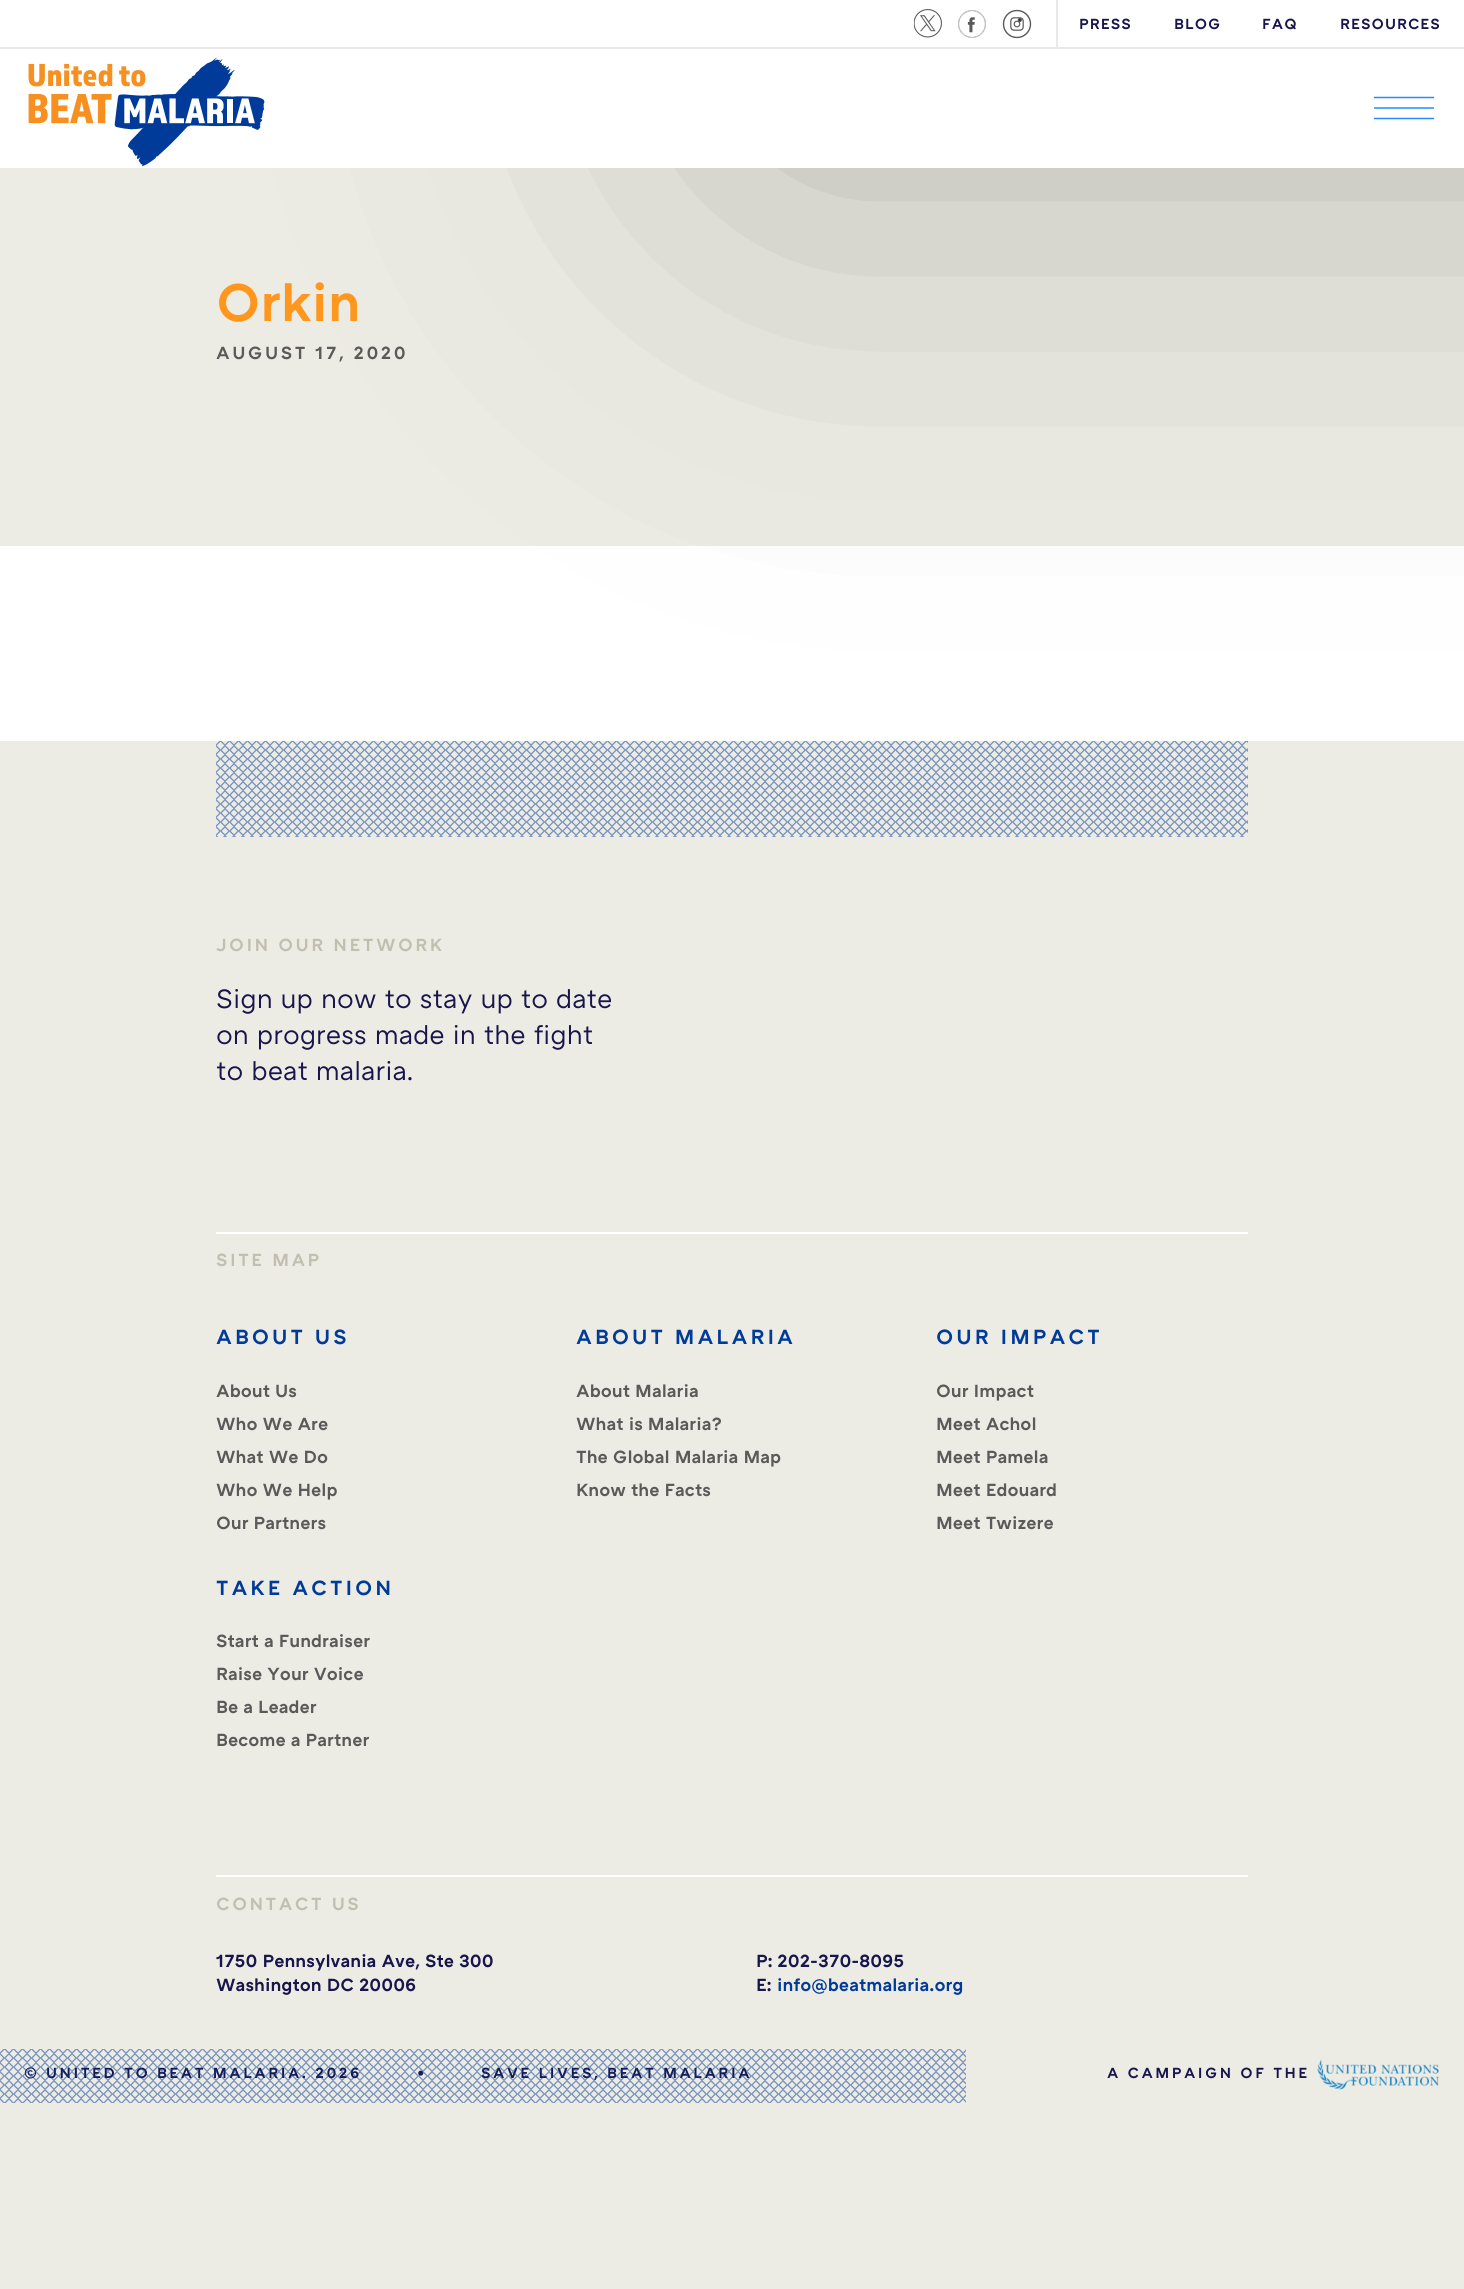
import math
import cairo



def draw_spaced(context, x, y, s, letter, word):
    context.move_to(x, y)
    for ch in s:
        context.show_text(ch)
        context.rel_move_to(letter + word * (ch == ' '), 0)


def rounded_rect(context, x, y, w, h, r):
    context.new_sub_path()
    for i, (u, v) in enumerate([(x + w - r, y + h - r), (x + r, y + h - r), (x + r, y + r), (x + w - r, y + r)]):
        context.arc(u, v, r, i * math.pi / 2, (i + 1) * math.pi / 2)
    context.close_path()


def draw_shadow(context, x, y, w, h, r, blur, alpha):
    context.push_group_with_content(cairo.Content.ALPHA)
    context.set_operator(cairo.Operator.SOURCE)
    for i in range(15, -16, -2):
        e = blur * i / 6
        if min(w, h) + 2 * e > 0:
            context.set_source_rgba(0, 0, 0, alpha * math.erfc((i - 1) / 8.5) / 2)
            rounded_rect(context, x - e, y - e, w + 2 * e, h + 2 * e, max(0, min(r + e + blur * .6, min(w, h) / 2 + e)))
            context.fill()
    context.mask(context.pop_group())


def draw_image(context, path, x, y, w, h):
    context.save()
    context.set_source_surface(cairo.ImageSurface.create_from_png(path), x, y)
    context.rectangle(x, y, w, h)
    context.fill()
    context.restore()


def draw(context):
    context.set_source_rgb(237 / 255, 236 / 255, 228 / 255)
    context.paint()
    context.set_source_rgb(1, 1, 1)
    context.rectangle(0, 546, 1464, 195)
    context.fill()
    draw_image(context, "images/5.png", 216, 741, 1032, 96)
    context.set_source_rgb(0, 0, 0)
    draw_shadow(context, 744, -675, 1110, 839, 0, 225, 0.25)
    context.set_source_rgb(1, 1, 1)
    context.rectangle(0, 0, 1464, 47)
    context.fill()
    context.set_source_rgb(233 / 255, 233 / 255, 233 / 255)
    context.rectangle(0, 47, 1464, 2)
    context.fill()
    draw_image(context, "images/1.png", 914, 9, 28, 29)
    draw_image(context, "images/2.png", 957, 10, 29, 28)
    context.rectangle(1056, 0, 2, 47)
    context.fill()
    draw_image(context, "images/3.png", 1002, 9, 30, 30)
    context.set_source_rgb(1, 1, 1)
    context.rectangle(0, 49, 1464, 119)
    context.fill()
    draw_image(context, "images/4.png", 28, 57, 237, 110)
    context.new_path()
    context.move_to(1374, 97.5)
    context.line_to(1434, 97.5)
    context.set_source_rgb(36 / 255, 140 / 255, 1)
    context.set_line_width(1.5)
    context.stroke()
    context.set_source_rgb(91 / 255, 169 / 255, 1)
    context.rectangle(1374, 107, 60, 2)
    context.fill()
    context.new_path()
    context.move_to(1374, 118.5)
    context.line_to(1434, 118.5)
    context.set_source_rgb(36 / 255, 140 / 255, 1)
    context.stroke()
    context.set_source_rgb(1, 1, 1)
    context.rectangle(216, 1232, 1032, 2)
    context.fill()
    context.rectangle(216, 1875, 1032, 2)
    context.fill()
    draw_image(context, "images/7.png", 1317, 2059, 122, 31)
    context.select_font_face("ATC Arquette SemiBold")
    context.set_font_size(15)
    context.set_source_rgb(23 / 255, 21 / 255, 76 / 255)
    draw_spaced(context, 1079, 29, "PRESS", 1, 0)
    draw_spaced(context, 1174, 29, "BLOG", 1, 0)
    draw_spaced(context, 1262, 29, "FAQ", 1, 0)
    draw_spaced(context, 1340, 29, "RESOURCES", 1, 0)
    context.set_font_size(54)
    context.set_source_rgb(1, 151 / 255, 31 / 255)
    context.move_to(216, 321)
    context.show_text("Orkin")
    context.set_font_size(18)
    context.set_source_rgb(90 / 255, 90 / 255, 90 / 255)
    draw_spaced(context, 216, 359, "AUGUST 17, 2020", 2.5, 0)
    context.set_source_rgb(194 / 255, 191 / 255, 177 / 255)
    draw_spaced(context, 216, 951, "JOIN OUR NETWORK", 2.5, 0)
    context.select_font_face("ATC Arquette")
    context.set_font_size(27)
    context.set_source_rgb(23 / 255, 21 / 255, 76 / 255)
    context.move_to(216, 1008)
    context.show_text("Sign up now to stay up to date")
    context.move_to(216, 1044)
    context.show_text("on progress made in the fight")
    context.move_to(216, 1080)
    context.show_text("to beat malaria.")
    context.select_font_face("ATC Arquette SemiBold")
    context.set_font_size(18)
    context.set_source_rgb(194 / 255, 191 / 255, 177 / 255)
    draw_spaced(context, 216, 1266, "SITE MAP", 2.5, 0)
    context.set_font_size(21)
    context.set_source_rgb(0, 59 / 255, 153 / 255)
    draw_spaced(context, 216, 1344, "ABOUT US", 3, 0)
    context.set_font_size(18)
    context.set_source_rgb(90 / 255, 90 / 255, 90 / 255)
    context.move_to(216, 1397)
    context.show_text("About Us")
    context.move_to(216, 1430)
    context.show_text("Who We Are")
    context.move_to(216, 1463)
    context.show_text("What We Do")
    context.move_to(216, 1496)
    context.show_text("Who We Help")
    context.move_to(216, 1529)
    context.show_text("Our Partners")
    context.set_font_size(21)
    context.set_source_rgb(0, 59 / 255, 153 / 255)
    draw_spaced(context, 576, 1344, "ABOUT MALARIA", 3, 0)
    context.set_font_size(18)
    context.set_source_rgb(90 / 255, 90 / 255, 90 / 255)
    context.move_to(576, 1397)
    context.show_text("About Malaria")
    context.move_to(576, 1430)
    context.show_text("What is Malaria?")
    context.move_to(576, 1463)
    context.show_text("The Global Malaria Map")
    context.move_to(576, 1496)
    context.show_text("Know the Facts")
    context.set_font_size(21)
    context.set_source_rgb(0, 59 / 255, 153 / 255)
    draw_spaced(context, 936, 1344, "OUR IMPACT", 3, 0)
    context.set_font_size(18)
    context.set_source_rgb(90 / 255, 90 / 255, 90 / 255)
    context.move_to(936, 1397)
    context.show_text("Our Impact")
    context.move_to(936, 1430)
    context.show_text("Meet Achol")
    context.move_to(936, 1463)
    context.show_text("Meet Pamela")
    context.move_to(936, 1496)
    context.show_text("Meet Edouard")
    context.move_to(936, 1529)
    context.show_text("Meet Twizere")
    context.set_font_size(21)
    context.set_source_rgb(0, 59 / 255, 153 / 255)
    draw_spaced(context, 216, 1595, "TAKE ACTION", 3, 0)
    context.set_font_size(18)
    context.set_source_rgb(90 / 255, 90 / 255, 90 / 255)
    context.move_to(216, 1647)
    context.show_text("Start a Fundraiser")
    context.move_to(216, 1680)
    context.show_text("Raise Your Voice")
    context.move_to(216, 1713)
    context.show_text("Be a Leader")
    context.move_to(216, 1746)
    context.show_text("Become a Partner")
    context.set_source_rgb(194 / 255, 191 / 255, 177 / 255)
    draw_spaced(context, 216, 1910, "CONTACT US", 2.5, 0)
    context.set_source_rgb(23 / 255, 21 / 255, 76 / 255)
    context.move_to(216, 1967)
    context.show_text("1750 Pennsylvania Ave, Ste 300")
    context.move_to(216, 1991)
    context.show_text("Washington DC 20006")
    context.move_to(756, 1967)
    context.show_text("P: 202-370-8095")
    context.move_to(756, 1991)
    context.show_text("E:")
    context.set_source_rgb(0, 59 / 255, 153 / 255)
    context.move_to(777, 1991)
    context.show_text("info@beatmalaria.org")
    context.set_font_size(15)
    context.set_source_rgb(23 / 255, 21 / 255, 76 / 255)
    draw_spaced(context, 24, 2078, "© UNITED TO BEAT MALARIA. 2026", 2.5, 0)
    draw_spaced(context, 417, 2078, "•", 2.5, 0)
    draw_spaced(context, 481, 2078, "SAVE LIVES, BEAT MALARIA", 2.5, 0)
    draw_image(context, "images/6.png", 0, 2049, 966, 54)
    draw_spaced(context, 1107, 2078, "A CAMPAIGN OF THE", 2.5, 0)


surface = cairo.ImageSurface(cairo.Format.RGB24, 1464, 2289)
context = cairo.Context(surface)
options = cairo.FontOptions()
options.set_hint_metrics(cairo.HintMetrics.OFF)
options.set_hint_style(cairo.HintStyle.NONE)
context.set_font_options(options)
context.set_miter_limit(4)
draw(context)
surface.write_to_png("out.png")
